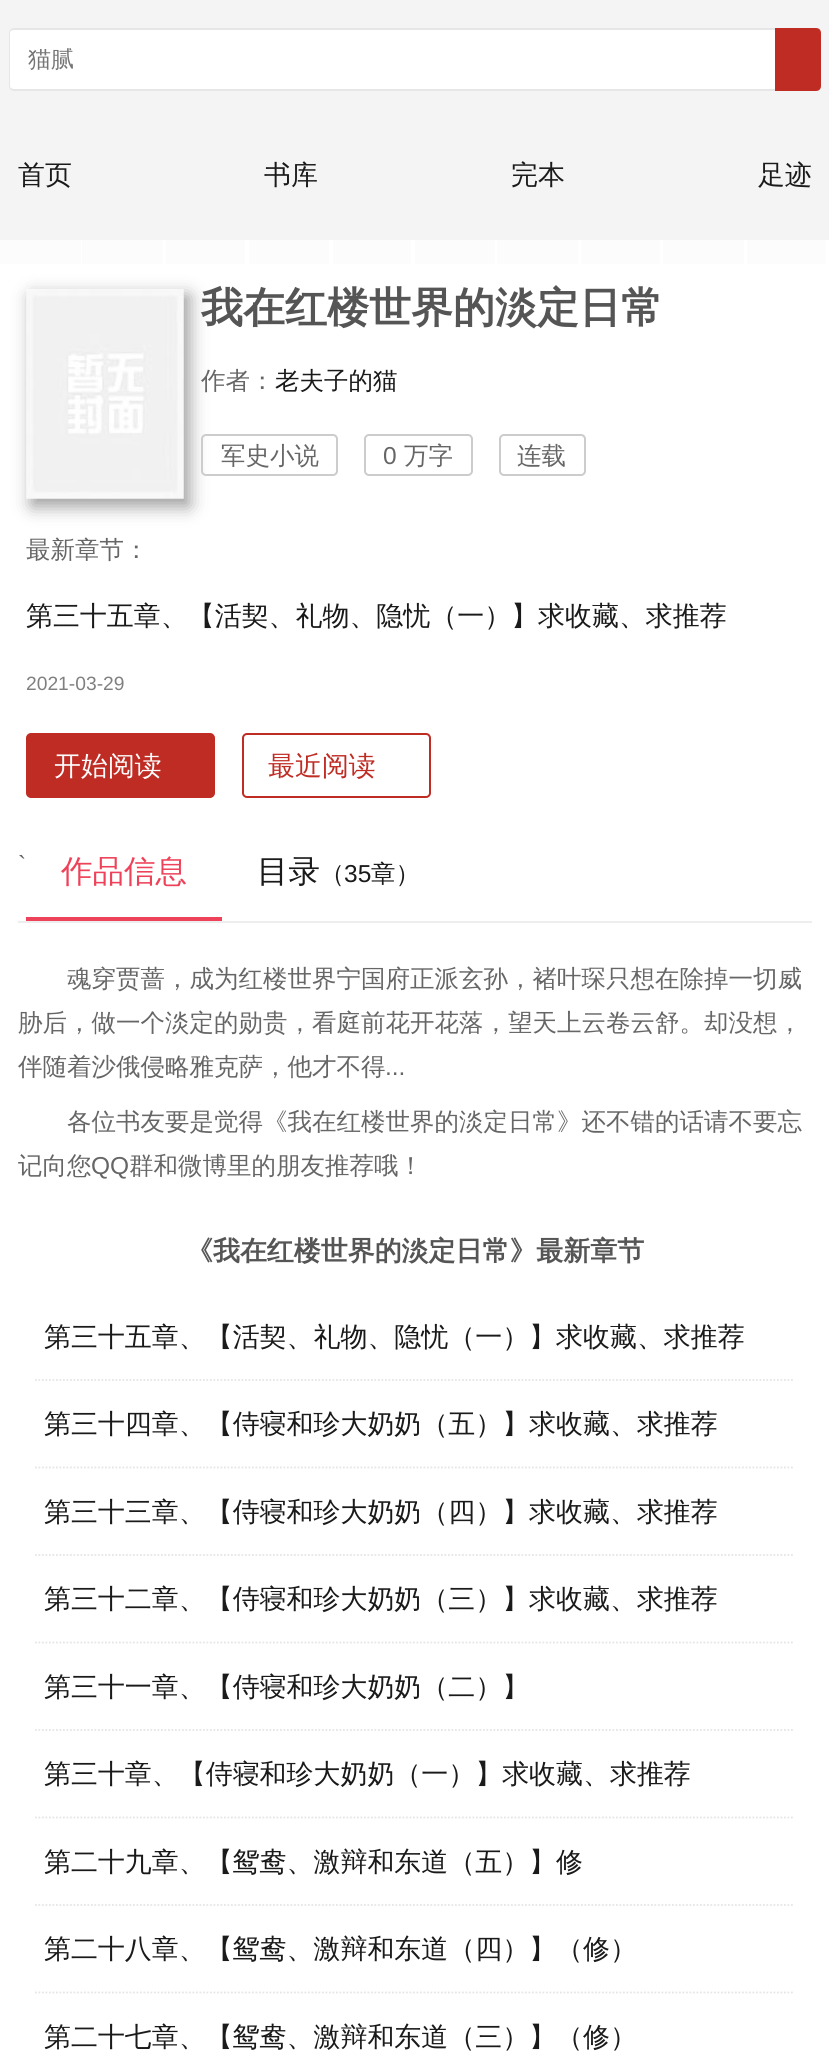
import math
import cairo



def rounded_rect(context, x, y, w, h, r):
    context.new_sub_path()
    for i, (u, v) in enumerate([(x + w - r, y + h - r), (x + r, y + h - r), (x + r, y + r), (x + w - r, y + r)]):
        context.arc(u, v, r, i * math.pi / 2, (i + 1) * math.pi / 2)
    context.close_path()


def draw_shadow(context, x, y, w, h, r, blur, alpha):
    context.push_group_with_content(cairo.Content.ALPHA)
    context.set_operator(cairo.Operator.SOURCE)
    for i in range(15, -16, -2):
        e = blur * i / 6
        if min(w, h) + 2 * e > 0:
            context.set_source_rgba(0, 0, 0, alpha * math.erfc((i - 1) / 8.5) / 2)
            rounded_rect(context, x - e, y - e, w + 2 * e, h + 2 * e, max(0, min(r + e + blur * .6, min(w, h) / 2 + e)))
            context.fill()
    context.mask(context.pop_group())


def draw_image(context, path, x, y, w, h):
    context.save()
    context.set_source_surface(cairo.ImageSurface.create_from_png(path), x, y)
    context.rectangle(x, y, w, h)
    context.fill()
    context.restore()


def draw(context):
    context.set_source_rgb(244 / 255, 244 / 255, 244 / 255)
    context.paint()
    context.set_source_rgb(1, 1, 1)
    context.new_path()
    context.move_to(14, 28)
    context.line_to(775, 28)
    context.line_to(775, 91)
    context.line_to(14, 91)
    context.curve_to(11, 91, 9, 89, 9, 86)
    context.line_to(9, 33)
    context.curve_to(9, 30, 11, 28, 14, 28)
    context.close_path()
    context.fill()
    context.set_source_rgb(230 / 255, 230 / 255, 230 / 255)
    context.set_fill_rule(cairo.FillRule.EVEN_ODD)
    context.new_path()
    context.move_to(14, 28)
    context.line_to(775, 28)
    context.line_to(775, 91)
    context.line_to(14, 91)
    context.curve_to(11, 91, 9, 89, 9, 86)
    context.line_to(9, 33)
    context.curve_to(9, 30, 11, 28, 14, 28)
    context.close_path()
    context.move_to(14, 30)
    context.line_to(775, 30)
    context.line_to(775, 89)
    context.line_to(14, 89)
    context.curve_to(12, 89, 10, 88, 10, 86)
    context.line_to(10, 33)
    context.curve_to(10, 31, 12, 30, 14, 30)
    context.close_path()
    context.fill()
    context.set_source_rgb(191 / 255, 44 / 255, 36 / 255)
    context.new_path()
    context.move_to(775, 28)
    context.line_to(816, 28)
    context.curve_to(819, 28, 821, 30, 821, 33)
    context.line_to(821, 86)
    context.curve_to(821, 89, 819, 91, 816, 91)
    context.line_to(775, 91)
    context.close_path()
    context.fill()
    context.set_source_rgb(1, 1, 1)
    context.rectangle(0, 240, 829, 1823)
    context.fill()
    context.set_source_rgb(252 / 255, 252 / 255, 252 / 255)
    context.rectangle(747, 240, 79, 24)
    context.fill()
    context.rectangle(663, 240, 81, 24)
    context.fill()
    context.rectangle(581, 240, 79, 24)
    context.fill()
    context.rectangle(497, 240, 81, 24)
    context.fill()
    context.rectangle(415, 240, 80, 24)
    context.fill()
    context.rectangle(333, 240, 78, 24)
    context.fill()
    context.rectangle(249, 240, 80, 24)
    context.fill()
    context.rectangle(166, 240, 79, 24)
    context.fill()
    context.rectangle(82, 240, 81, 24)
    context.fill()
    context.rectangle(0, 240, 81, 24)
    context.fill()
    context.set_source_rgb(153 / 255, 153 / 255, 153 / 255)
    draw_shadow(context, 32, 296, 157, 210, 0, 9, 1)
    draw_image(context, "images/1.png", 26, 289, 158, 210)
    rounded_rect(context, 202, 435, 135, 40, 4)
    context.set_source_rgb(204 / 255, 204 / 255, 204 / 255)
    context.stroke()
    rounded_rect(context, 365, 435, 107, 40, 4)
    context.stroke()
    rounded_rect(context, 500, 435, 85, 40, 4)
    context.stroke()
    context.set_source_rgb(191 / 255, 44 / 255, 36 / 255)
    rounded_rect(context, 27, 734, 187, 63, 4)
    context.fill_preserve()
    context.stroke()
    rounded_rect(context, 243, 734, 187, 63, 4)
    context.stroke()
    context.set_source_rgb(238 / 255, 238 / 255, 238 / 255)
    context.rectangle(18, 921, 794, 2)
    context.fill()
    context.set_source_rgb(237 / 255, 66 / 255, 89 / 255)
    context.rectangle(26, 917, 196, 4)
    context.fill()
    context.new_path()
    context.move_to(35, 1380)
    context.line_to(794.5, 1380)
    context.set_source_rgb(229 / 255, 229 / 255, 229 / 255)
    context.set_line_width(1.8)
    context.set_dash([1.75, 1.75])
    context.stroke()
    context.new_path()
    context.move_to(35, 1467.5)
    context.line_to(794.5, 1467.5)
    context.stroke()
    context.new_path()
    context.move_to(35, 1555)
    context.line_to(794.5, 1555)
    context.stroke()
    context.new_path()
    context.move_to(35, 1642.5)
    context.line_to(794.5, 1642.5)
    context.stroke()
    context.new_path()
    context.move_to(35, 1730)
    context.line_to(794.5, 1730)
    context.stroke()
    context.new_path()
    context.move_to(35, 1817.5)
    context.line_to(794.5, 1817.5)
    context.stroke()
    context.new_path()
    context.move_to(35, 1905)
    context.line_to(794.5, 1905)
    context.stroke()
    context.new_path()
    context.move_to(35, 1992.5)
    context.line_to(794.5, 1992.5)
    context.stroke()
    context.select_font_face("WenQuanYi Zen Hei Medium")
    context.set_font_size(23)
    context.set_source_rgb(117 / 255, 117 / 255, 117 / 255)
    context.move_to(28, 67)
    context.show_text("猫腻")
    context.set_font_size(26.95)
    context.set_source_rgb(26 / 255, 26 / 255, 26 / 255)
    context.move_to(18, 184)
    context.show_text("首页")
    context.move_to(264, 184)
    context.show_text("书库")
    context.move_to(511, 184)
    context.show_text("完本")
    context.move_to(758, 184)
    context.show_text("足迹")
    context.select_font_face("WenQuanYi Zen Hei", cairo.FontSlant.NORMAL, cairo.FontWeight.BOLD)
    context.set_font_size(42)
    context.set_source_rgb(85 / 255, 85 / 255, 85 / 255)
    context.move_to(201, 322)
    context.show_text("我在红楼世界的淡定日常")
    context.select_font_face("WenQuanYi Zen Hei Medium")
    context.set_font_size(24.5)
    context.set_source_rgb(102 / 255, 102 / 255, 102 / 255)
    context.move_to(201, 389)
    context.show_text("作者：")
    context.set_source_rgb(26 / 255, 26 / 255, 26 / 255)
    context.move_to(275, 389)
    context.show_text("老夫子的猫")
    context.set_source_rgb(102 / 255, 102 / 255, 102 / 255)
    context.move_to(221, 464)
    context.show_text("军史小说")
    context.select_font_face("Liberation Sans")
    context.move_to(383, 464)
    context.show_text("0")
    context.select_font_face("WenQuanYi Zen Hei Medium")
    context.move_to(404, 464)
    context.show_text("万字")
    context.move_to(517, 464)
    context.show_text("连载")
    context.move_to(26, 558)
    context.show_text("最新章节：")
    context.set_font_size(26.95)
    context.set_source_rgb(26 / 255, 26 / 255, 26 / 255)
    context.move_to(26, 625)
    context.show_text("第三十五章、【活契、礼物、隐忧（一）】求收藏、求推荐")
    context.select_font_face("Liberation Sans")
    context.set_font_size(19.25)
    context.set_source_rgb(128 / 255, 128 / 255, 128 / 255)
    context.move_to(26, 690)
    context.show_text("2021-03-29")
    context.select_font_face("WenQuanYi Zen Hei Medium")
    context.set_font_size(26.95)
    context.set_source_rgb(251 / 255, 251 / 255, 251 / 255)
    context.move_to(54, 775)
    context.show_text("开始阅读")
    context.set_source_rgb(191 / 255, 44 / 255, 36 / 255)
    context.move_to(268, 775)
    context.show_text("最近阅读")
    context.select_font_face("Liberation Sans")
    context.set_font_size(24.5)
    context.set_source_rgb(102 / 255, 102 / 255, 102 / 255)
    context.move_to(18, 873)
    context.show_text("`")
    context.select_font_face("WenQuanYi Zen Hei Medium")
    context.set_font_size(31.5)
    context.set_source_rgb(237 / 255, 66 / 255, 89 / 255)
    context.move_to(61, 882)
    context.show_text("作品信息")
    context.set_source_rgb(26 / 255, 26 / 255, 26 / 255)
    context.move_to(257, 882)
    context.show_text("目录")
    context.set_font_size(24.5)
    context.move_to(320, 882)
    context.show_text("（")
    context.select_font_face("Liberation Sans")
    context.move_to(344, 882)
    context.show_text("35")
    context.select_font_face("WenQuanYi Zen Hei Medium")
    context.move_to(371, 882)
    context.show_text("章）")
    context.set_source_rgb(102 / 255, 102 / 255, 102 / 255)
    context.move_to(67, 987)
    context.show_text("魂穿贾蔷，成为红楼世界宁国府正派玄孙，褚叶琛只想在除掉一切威")
    context.move_to(18, 1031)
    context.show_text("胁后，做一个淡定的勋贵，看庭前花开花落，望天上云卷云舒。却没想，")
    context.move_to(18, 1075)
    context.show_text("伴随着沙俄侵略雅克萨，他才不得")
    context.select_font_face("Liberation Sans")
    context.move_to(385, 1075)
    context.show_text("...")
    context.select_font_face("WenQuanYi Zen Hei Medium")
    context.move_to(67, 1130)
    context.show_text("各位书友要是觉得《我在红楼世界的淡定日常》还不错的话请不要忘")
    context.move_to(18, 1174)
    context.show_text("记向您")
    context.select_font_face("Liberation Sans")
    context.move_to(91, 1174)
    context.show_text("QQ")
    context.select_font_face("WenQuanYi Zen Hei Medium")
    context.move_to(129, 1174)
    context.show_text("群和微博里的朋友推荐哦！")
    context.select_font_face("WenQuanYi Zen Hei", cairo.FontSlant.NORMAL, cairo.FontWeight.BOLD)
    context.set_font_size(26.95)
    context.set_source_rgb(85 / 255, 85 / 255, 85 / 255)
    context.move_to(186, 1260)
    context.show_text("《我在红楼世界的淡定日常》最新章节")
    context.select_font_face("WenQuanYi Zen Hei Medium")
    context.set_source_rgb(26 / 255, 26 / 255, 26 / 255)
    context.move_to(44, 1346)
    context.show_text("第三十五章、【活契、礼物、隐忧（一）】求收藏、求推荐")
    context.move_to(44, 1433)
    context.show_text("第三十四章、【侍寝和珍大奶奶（五）】求收藏、求推荐")
    context.move_to(44, 1521)
    context.show_text("第三十三章、【侍寝和珍大奶奶（四）】求收藏、求推荐")
    context.move_to(44, 1608)
    context.show_text("第三十二章、【侍寝和珍大奶奶（三）】求收藏、求推荐")
    context.move_to(44, 1696)
    context.show_text("第三十一章、【侍寝和珍大奶奶（二）】")
    context.move_to(44, 1783)
    context.show_text("第三十章、【侍寝和珍大奶奶（一）】求收藏、求推荐")
    context.move_to(44, 1871)
    context.show_text("第二十九章、【鸳鸯、激辩和东道（五）】修")
    context.move_to(44, 1958)
    context.show_text("第二十八章、【鸳鸯、激辩和东道（四）】（修）")
    context.move_to(44, 2046)
    context.show_text("第二十七章、【鸳鸯、激辩和东道（三）】（修）")


surface = cairo.ImageSurface(cairo.Format.RGB24, 829, 2063)
context = cairo.Context(surface)
options = cairo.FontOptions()
options.set_hint_metrics(cairo.HintMetrics.OFF)
options.set_hint_style(cairo.HintStyle.NONE)
context.set_font_options(options)
context.set_miter_limit(4)
draw(context)
surface.write_to_png("out.png")
